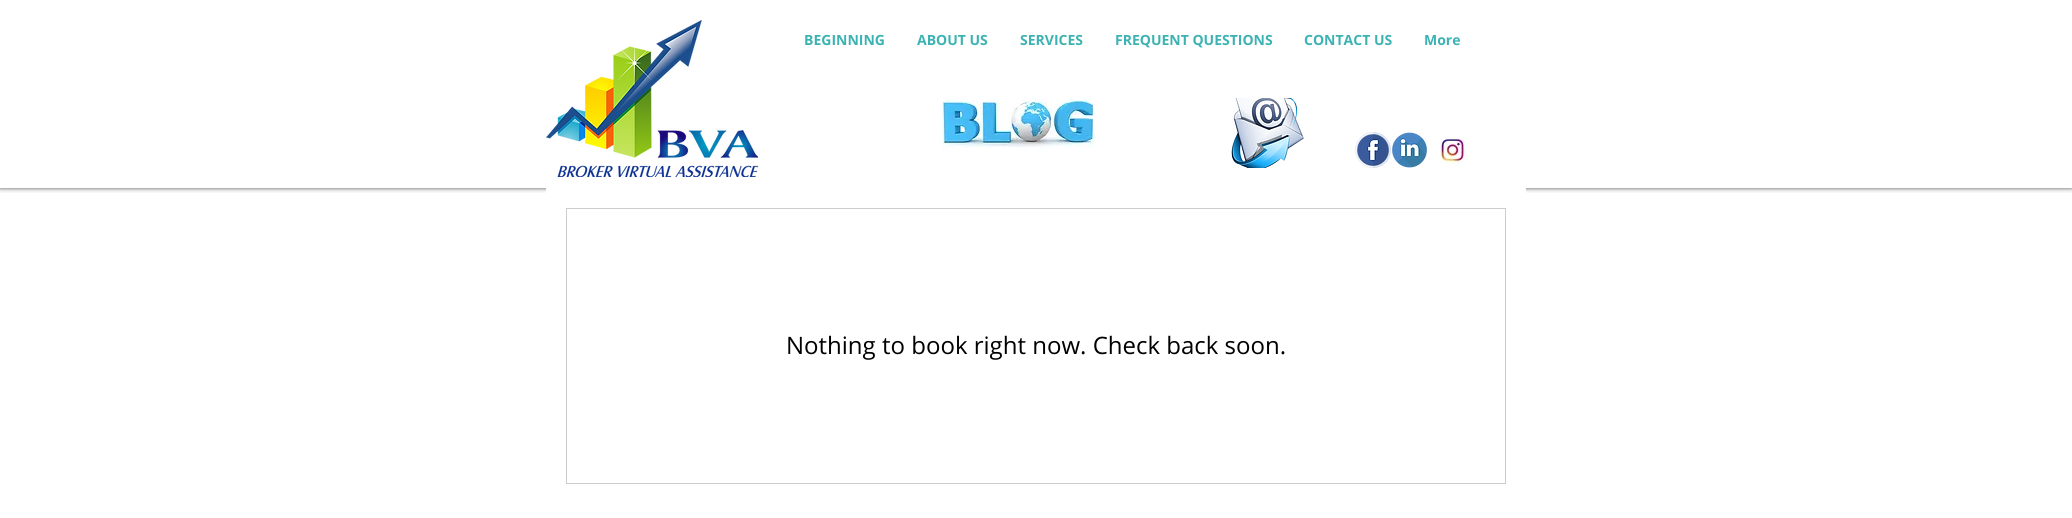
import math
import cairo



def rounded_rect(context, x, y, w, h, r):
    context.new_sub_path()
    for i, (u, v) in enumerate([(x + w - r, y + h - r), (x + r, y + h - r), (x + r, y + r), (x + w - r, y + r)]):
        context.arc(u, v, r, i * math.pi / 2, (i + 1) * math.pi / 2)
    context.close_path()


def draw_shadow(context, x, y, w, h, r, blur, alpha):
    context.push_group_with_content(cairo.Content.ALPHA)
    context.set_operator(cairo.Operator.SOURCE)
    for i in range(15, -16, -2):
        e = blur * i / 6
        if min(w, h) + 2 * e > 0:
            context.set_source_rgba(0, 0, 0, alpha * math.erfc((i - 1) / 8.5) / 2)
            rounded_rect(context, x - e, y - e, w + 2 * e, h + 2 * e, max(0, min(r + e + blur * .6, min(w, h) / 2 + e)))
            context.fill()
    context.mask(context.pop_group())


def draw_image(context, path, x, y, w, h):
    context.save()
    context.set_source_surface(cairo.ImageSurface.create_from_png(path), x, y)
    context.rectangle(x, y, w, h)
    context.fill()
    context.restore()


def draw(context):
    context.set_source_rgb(1, 1, 1)
    context.paint()
    context.save()
    context.rectangle(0, 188, 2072, 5)
    context.clip()
    context.set_source_rgb(0, 0, 0)
    draw_shadow(context, 0, 0, 2072, 188, 0, 2.5, 0.7)
    context.restore()
    draw_image(context, "images/1.png", 546, 20, 212, 157)
    draw_image(context, "images/2.png", 942, 99, 153, 52)
    draw_image(context, "images/3.png", 1231, 98, 73, 70)
    draw_image(context, "images/4.png", 1355, 132, 36, 36)
    draw_image(context, "images/5.png", 1392, 132, 35, 36)
    draw_image(context, "images/6.png", 1439, 136, 30, 28)
    context.set_source_rgb(1, 1, 1)
    context.rectangle(546, 188, 980, 5)
    context.fill()
    context.rectangle(566.5, 208.5, 939, 275)
    context.set_source_rgb(204 / 255, 204 / 255, 204 / 255)
    context.set_line_width(1)
    context.stroke()
    context.select_font_face("Open Sans", cairo.FontSlant.NORMAL, cairo.FontWeight.BOLD)
    context.set_font_size(14)
    context.set_source_rgb(60 / 255, 178 / 255, 178 / 255)
    context.move_to(804, 45)
    context.show_text("BEGINNING")
    context.move_to(917, 45)
    context.show_text("ABOUT US")
    context.move_to(1020, 45)
    context.show_text("SERVICES")
    context.move_to(1115, 45)
    context.show_text("FREQUENT QUESTIONS")
    context.move_to(1304, 45)
    context.show_text("CONTACT US")
    context.move_to(1424, 45)
    context.show_text("More")
    context.select_font_face("Open Sans")
    context.set_font_size(24)
    context.set_source_rgb(0, 0, 0)
    context.move_to(786, 354)
    context.show_text("Nothing to book right now. Check back soon.")


surface = cairo.ImageSurface(cairo.Format.RGB24, 2072, 518)
context = cairo.Context(surface)
options = cairo.FontOptions()
options.set_hint_metrics(cairo.HintMetrics.OFF)
options.set_hint_style(cairo.HintStyle.NONE)
context.set_font_options(options)
context.set_miter_limit(4)
draw(context)
surface.write_to_png("out.png")
